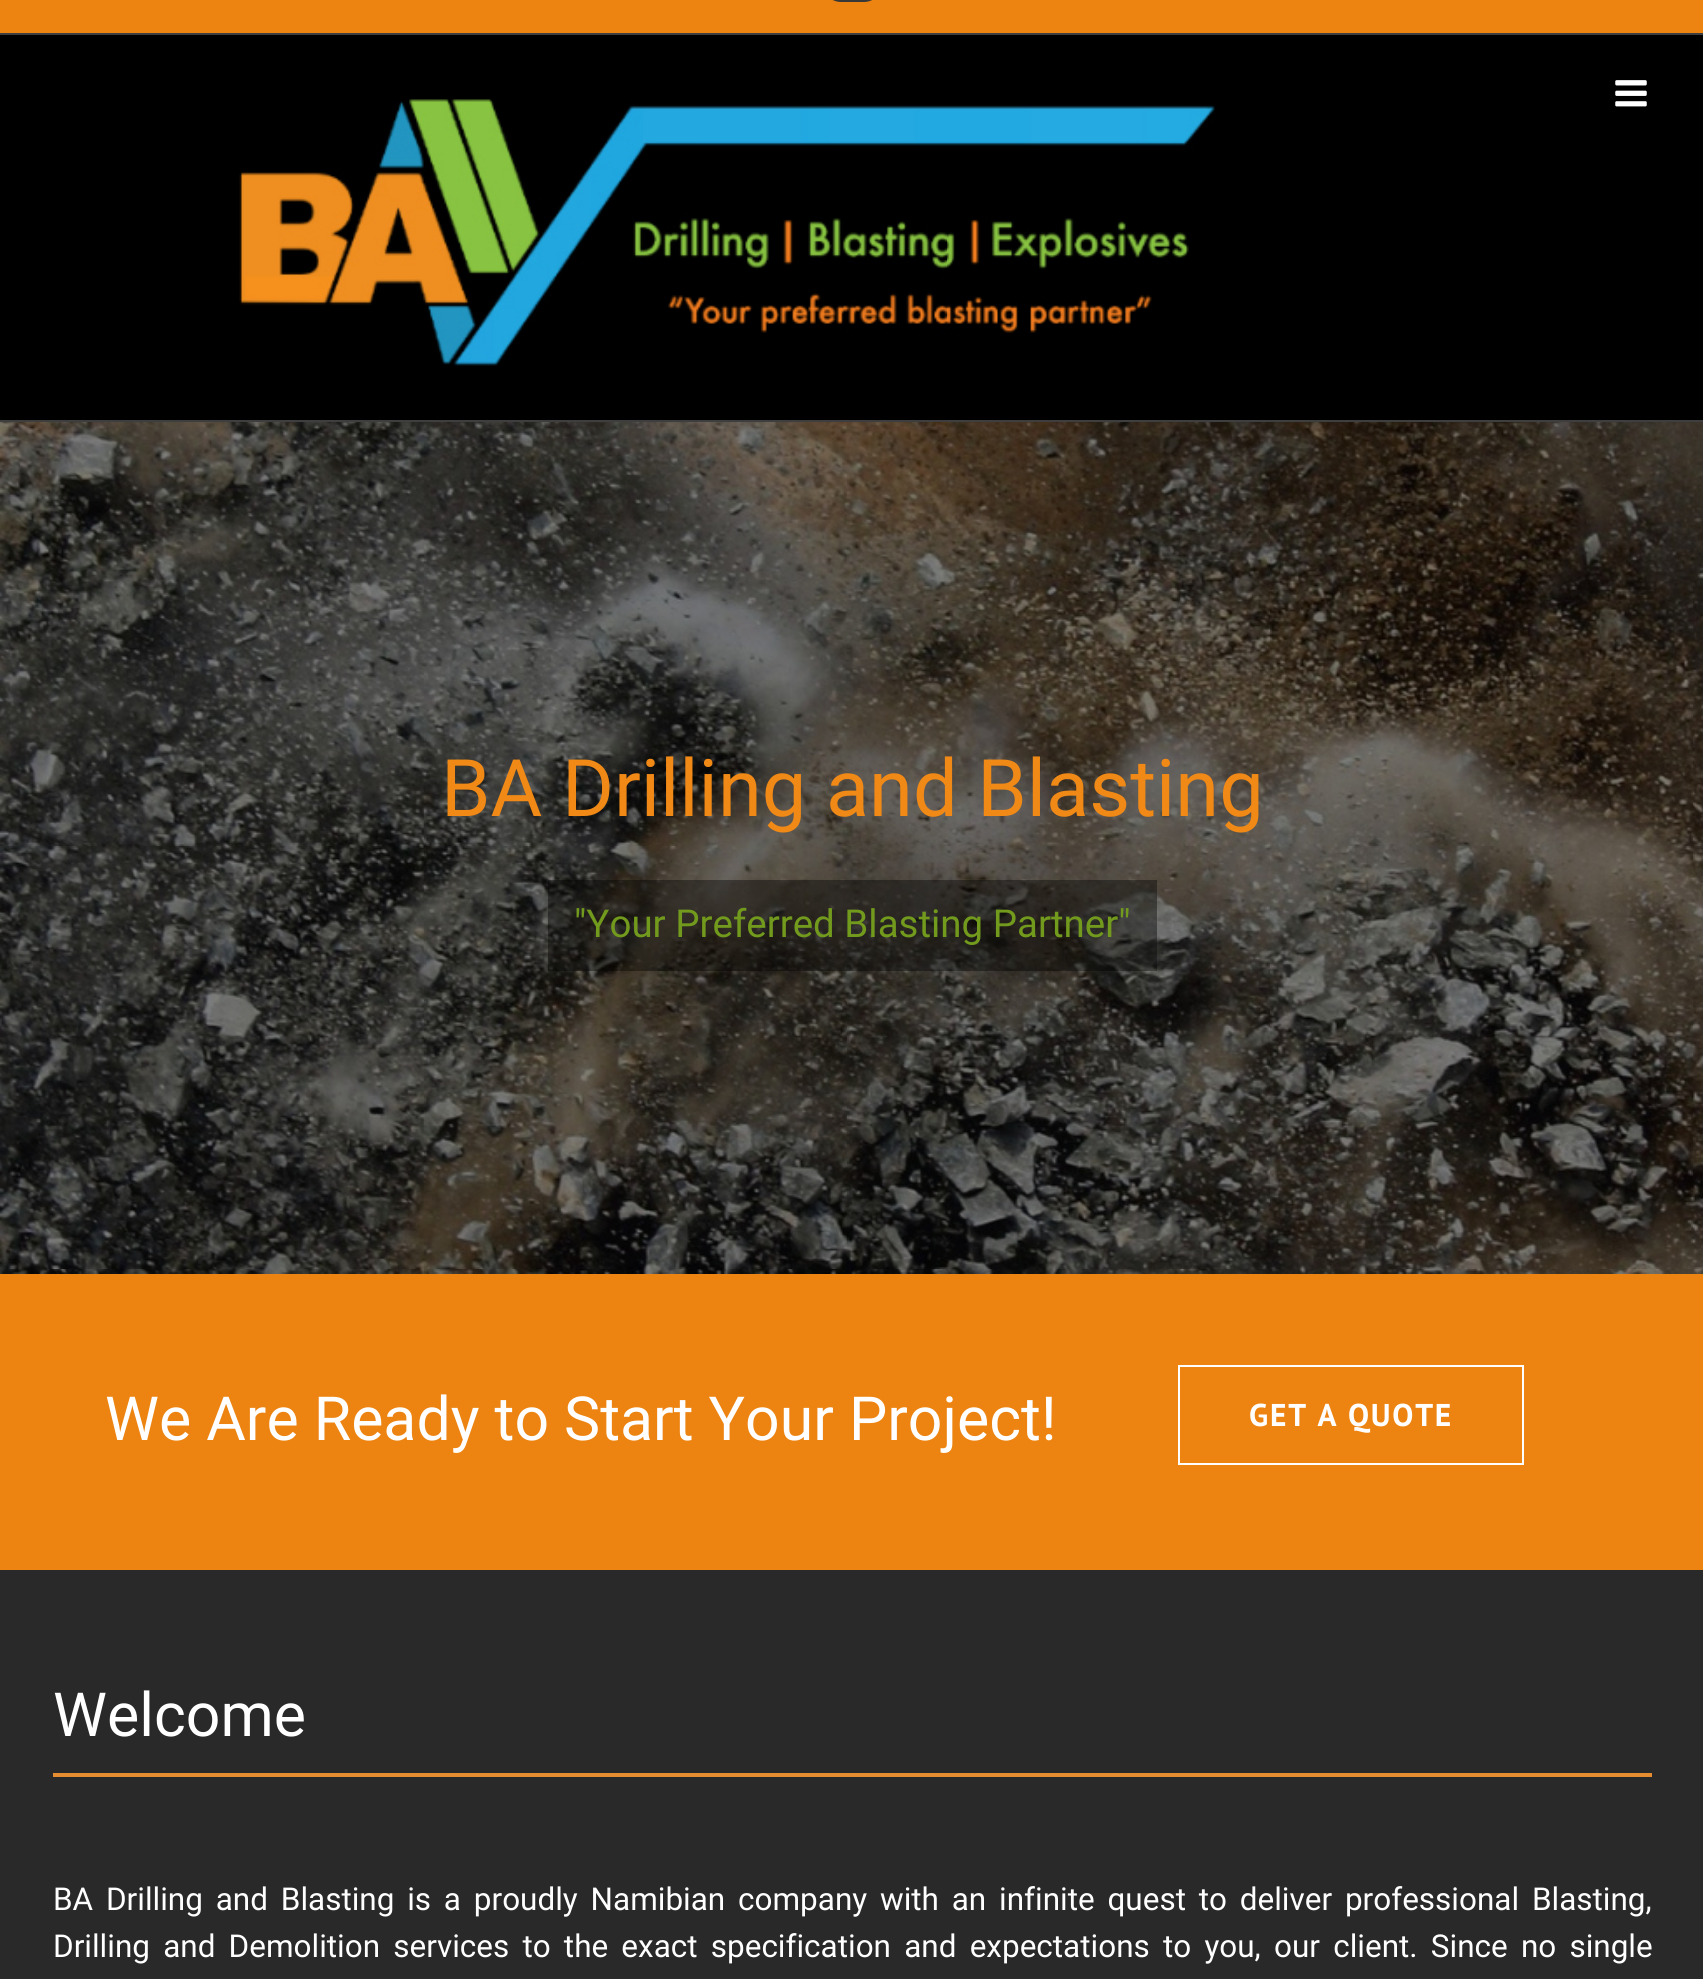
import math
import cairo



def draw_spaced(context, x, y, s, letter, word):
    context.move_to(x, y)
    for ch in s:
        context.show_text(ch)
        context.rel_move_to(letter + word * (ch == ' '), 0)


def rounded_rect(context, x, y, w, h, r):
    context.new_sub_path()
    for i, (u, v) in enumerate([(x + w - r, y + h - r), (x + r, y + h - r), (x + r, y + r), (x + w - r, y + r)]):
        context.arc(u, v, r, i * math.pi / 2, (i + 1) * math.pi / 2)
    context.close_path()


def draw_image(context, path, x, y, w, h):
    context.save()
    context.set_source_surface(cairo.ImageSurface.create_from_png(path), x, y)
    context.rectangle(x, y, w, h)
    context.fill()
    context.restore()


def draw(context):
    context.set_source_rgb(41 / 255, 41 / 255, 42 / 255)
    context.paint()
    context.set_source_rgb(237 / 255, 132 / 255, 17 / 255)
    context.rectangle(0, 0, 1703, 33)
    context.fill()
    context.set_source_rgb(62 / 255, 62 / 255, 62 / 255)
    context.rectangle(0, 33, 1703, 2)
    context.fill()
    rounded_rect(context, 824, -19, 57, 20, 17)
    context.set_source_rgb(56 / 255, 56 / 255, 56 / 255)
    context.stroke()
    context.set_source_rgb(0, 0, 0)
    context.rectangle(0, 35, 1703, 385)
    context.fill()
    context.set_source_rgb(62 / 255, 62 / 255, 62 / 255)
    context.rectangle(0, 420, 1703, 2)
    context.fill()
    draw_image(context, "images/1.png", 1615, 80, 32, 27)
    draw_image(context, "images/2.png", 239, 99, 976, 267)
    draw_image(context, "images/3.png", 0, 422, 1703, 852)
    context.set_source_rgba(0, 0, 0, 0.4)
    context.rectangle(548, 880, 609, 91)
    context.fill()
    context.set_source_rgb(237 / 255, 132 / 255, 17 / 255)
    context.rectangle(0, 1274, 1703, 296)
    context.fill()
    context.rectangle(1179, 1366, 344, 98)
    context.set_source_rgb(1, 1, 1)
    context.stroke()
    context.set_source_rgb(229 / 255, 141 / 255, 48 / 255)
    context.rectangle(53, 1773, 1599, 4)
    context.fill()
    context.select_font_face("Roboto")
    context.set_font_size(79.4)
    context.set_source_rgb(241 / 255, 137 / 255, 22 / 255)
    context.move_to(441, 816)
    context.show_text("BA Drilling and Blasting")
    context.set_font_size(38.5)
    context.set_source_rgb(114 / 255, 154 / 255, 29 / 255)
    context.move_to(574, 937)
    context.show_text("\"Your Preferred Blasting Partner\"")
    context.set_font_size(60.8)
    context.set_source_rgb(1, 1, 1)
    context.move_to(105, 1440)
    context.show_text("We Are Ready to Start Your Project!")
    context.select_font_face("PT Sans", cairo.FontSlant.NORMAL, cairo.FontWeight.BOLD)
    context.set_font_size(31.5)
    draw_spaced(context, 1249, 1426, "GET A QUOTE", 1.75, 0)
    context.select_font_face("Roboto")
    context.set_font_size(60.8)
    context.move_to(53, 1736)
    context.show_text("Welcome")
    context.set_font_size(31.5)
    draw_spaced(context, 53, 1910, "BA Drilling and Blasting is a proudly Namibian company with an infinite quest to deliver professional Blasting,", 0, 5)
    draw_spaced(context, 53, 1957, "Drilling and Demolition services to the exact specification and expectations to you, our client. Since no single", 0, 5.4)


surface = cairo.ImageSurface(cairo.Format.RGB24, 1703, 1979)
context = cairo.Context(surface)
options = cairo.FontOptions()
options.set_hint_metrics(cairo.HintMetrics.OFF)
options.set_hint_style(cairo.HintStyle.NONE)
context.set_font_options(options)
context.set_miter_limit(4)
draw(context)
surface.write_to_png("out.png")
